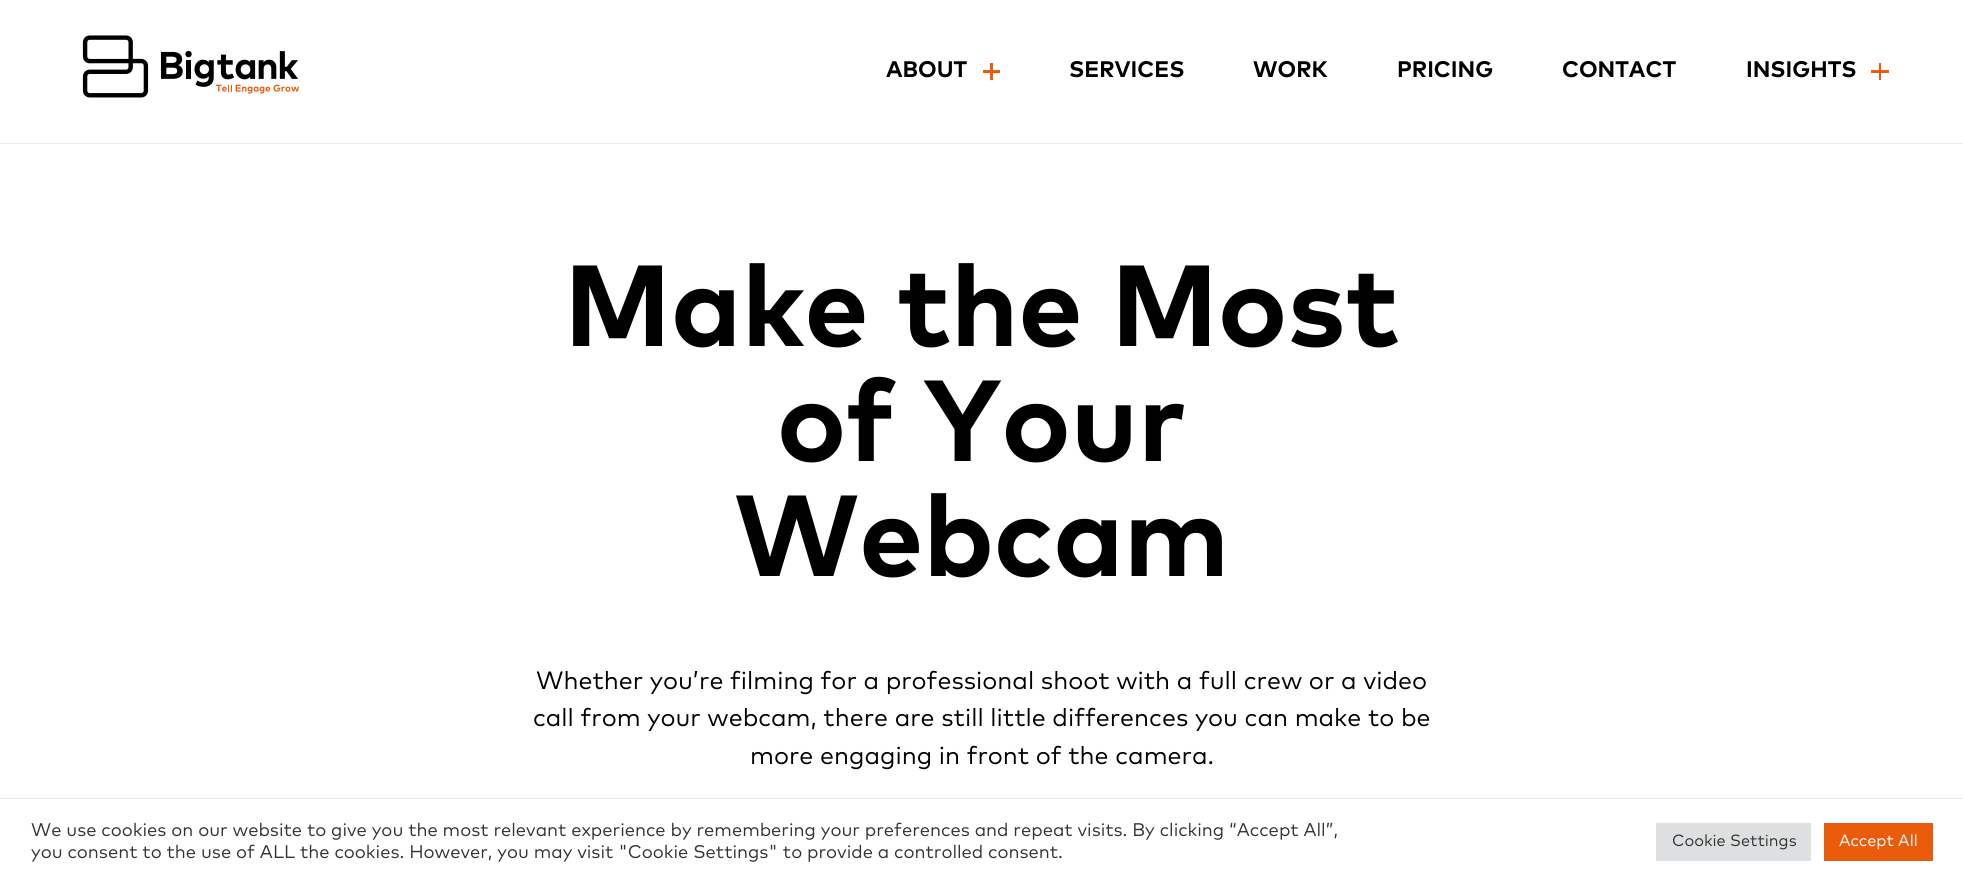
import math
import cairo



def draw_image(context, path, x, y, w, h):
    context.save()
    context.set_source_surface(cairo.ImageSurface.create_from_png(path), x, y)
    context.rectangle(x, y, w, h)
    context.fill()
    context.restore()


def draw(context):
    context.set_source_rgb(1, 1, 1)
    context.paint()
    context.set_source_rgb(236 / 255, 236 / 255, 236 / 255)
    context.rectangle(0, 143, 1963, 1)
    context.fill()
    draw_image(context, "images/1.png", 82, 35, 218, 63)
    context.set_source_rgb(234 / 255, 91 / 255, 12 / 255)
    context.rectangle(990, 63, 3, 17)
    context.fill()
    context.rectangle(983, 70, 17, 3)
    context.fill()
    context.rectangle(1879, 63, 2, 17)
    context.fill()
    context.rectangle(1871, 70, 18, 3)
    context.fill()
    context.set_source_rgb(234 / 255, 231 / 255, 228 / 255)
    context.rectangle(0, 798, 1963, 1)
    context.fill()
    context.set_source_rgb(222 / 255, 223 / 255, 224 / 255)
    context.rectangle(1656, 823, 155, 38)
    context.fill()
    context.set_source_rgb(234 / 255, 91 / 255, 12 / 255)
    context.rectangle(1824, 823, 109, 38)
    context.fill()
    context.select_font_face("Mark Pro", cairo.FontSlant.NORMAL, cairo.FontWeight.BOLD)
    context.set_font_size(22.5)
    context.set_source_rgb(0, 0, 0)
    context.move_to(886, 77)
    context.show_text("ABOUT")
    context.move_to(1069, 77)
    context.show_text("SERVICES")
    context.move_to(1253, 77)
    context.show_text("WORK")
    context.move_to(1397, 77)
    context.show_text("PRICING")
    context.move_to(1562, 77)
    context.show_text("CONTACT")
    context.move_to(1746, 77)
    context.show_text("INSIGHTS")
    context.set_font_size(115)
    context.move_to(564, 346)
    context.show_text("Make the Most")
    context.move_to(777, 461)
    context.show_text("of Your")
    context.move_to(734, 576)
    context.show_text("Webcam")
    context.select_font_face("Mark Pro")
    context.set_font_size(25)
    context.move_to(536, 689)
    context.show_text("Whether you’re filming for a professional shoot with a full crew or a video")
    context.move_to(533, 726)
    context.show_text("call from your webcam, there are still little differences you can make to be")
    context.move_to(750, 764)
    context.show_text("more engaging in front of the camera.")
    context.set_font_size(18.33)
    context.set_source_rgb(51 / 255, 51 / 255, 51 / 255)
    context.move_to(31, 836)
    context.show_text("We use cookies on our website to give you the most relevant experience by remembering your preferences and repeat visits. By clicking “Accept All”,")
    context.move_to(31, 858)
    context.show_text("you consent to the use of ALL the cookies. However, you may visit \"Cookie Settings\" to provide a controlled consent.")
    context.set_font_size(16.25)
    context.move_to(1672, 846)
    context.show_text("Cookie Settings")
    context.set_source_rgb(1, 1, 1)
    context.move_to(1839, 846)
    context.show_text("Accept All")


surface = cairo.ImageSurface(cairo.Format.RGB24, 1963, 885)
context = cairo.Context(surface)
options = cairo.FontOptions()
options.set_hint_metrics(cairo.HintMetrics.OFF)
options.set_hint_style(cairo.HintStyle.NONE)
context.set_font_options(options)
context.set_miter_limit(4)
draw(context)
surface.write_to_png("out.png")
